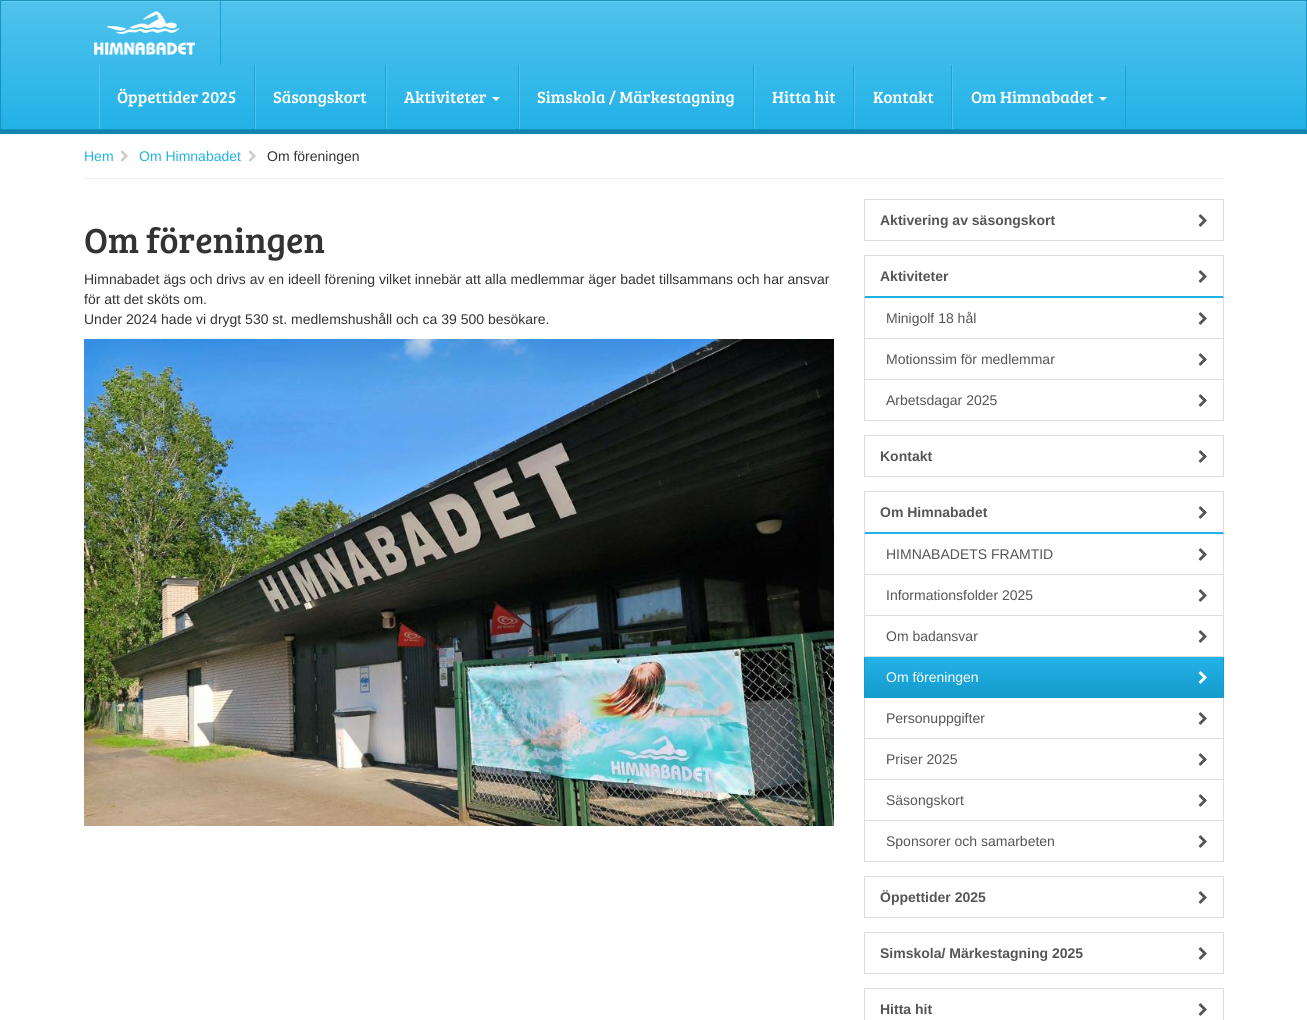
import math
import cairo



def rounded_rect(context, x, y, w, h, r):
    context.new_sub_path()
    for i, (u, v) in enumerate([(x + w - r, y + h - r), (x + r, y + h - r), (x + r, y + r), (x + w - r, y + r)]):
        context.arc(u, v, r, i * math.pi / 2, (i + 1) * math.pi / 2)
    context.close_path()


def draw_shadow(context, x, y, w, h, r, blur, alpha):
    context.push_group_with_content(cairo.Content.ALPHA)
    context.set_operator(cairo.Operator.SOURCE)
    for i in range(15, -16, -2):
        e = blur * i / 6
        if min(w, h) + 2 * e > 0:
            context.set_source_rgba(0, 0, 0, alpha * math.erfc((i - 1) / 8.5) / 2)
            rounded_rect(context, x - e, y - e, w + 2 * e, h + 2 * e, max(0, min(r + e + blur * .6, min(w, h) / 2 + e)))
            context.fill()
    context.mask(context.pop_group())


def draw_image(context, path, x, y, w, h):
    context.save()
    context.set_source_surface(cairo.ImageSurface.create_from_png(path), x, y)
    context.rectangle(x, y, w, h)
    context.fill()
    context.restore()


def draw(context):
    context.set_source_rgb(19 / 255, 136 / 255, 179 / 255)
    context.paint()
    context.set_source_rgb(1, 1, 1)
    context.rectangle(0, 134, 1307, 886)
    context.fill()
    context.set_source_rgb(0, 0, 0)
    draw_shadow(context, 0, 1, 1307, 130, 0, 2.5, 0.07)
    gradient = cairo.LinearGradient(654, 1, 654, 129)
    gradient.add_color_stop_rgba(0, 80 / 255, 194 / 255, 236 / 255, 1)
    gradient.add_color_stop_rgba(1, 34 / 255, 178 / 255, 231 / 255, 1)
    context.set_source(gradient)
    context.rectangle(1, 2, 1305, 127)
    context.fill()
    context.set_source_rgb(106 / 255, 203 / 255, 239 / 255)
    context.rectangle(1, 1, 1305, 1)
    context.fill()
    context.rectangle(0.5, 0.5, 1306, 129)
    context.set_source_rgb(21 / 255, 147 / 255, 193 / 255)
    context.set_line_width(1)
    context.stroke()
    context.set_source_rgb(23 / 255, 164 / 255, 216 / 255)
    context.rectangle(220, 1, 1, 64)
    context.fill()
    draw_image(context, "images/1.png", 94, 11, 101, 44)
    context.rectangle(254, 65, 1, 64)
    context.fill()
    context.set_source_rgb(80 / 255, 194 / 255, 236 / 255)
    context.rectangle(99, 65, 1, 64)
    context.fill()
    context.set_source_rgb(23 / 255, 164 / 255, 216 / 255)
    context.rectangle(385, 65, 1, 64)
    context.fill()
    context.set_source_rgb(80 / 255, 194 / 255, 236 / 255)
    context.rectangle(255, 65, 1, 64)
    context.fill()
    context.set_source_rgb(23 / 255, 164 / 255, 216 / 255)
    context.rectangle(518, 65, 1, 64)
    context.fill()
    context.set_source_rgb(80 / 255, 194 / 255, 236 / 255)
    context.rectangle(386, 65, 1, 64)
    context.fill()
    context.set_source_rgb(1, 1, 1)
    context.new_path()
    context.move_to(492, 97)
    context.line_to(500, 97)
    context.line_to(496, 101)
    context.close_path()
    context.fill()
    context.set_source_rgb(23 / 255, 164 / 255, 216 / 255)
    context.rectangle(753, 65, 1, 64)
    context.fill()
    context.set_source_rgb(80 / 255, 194 / 255, 236 / 255)
    context.rectangle(519, 65, 1, 64)
    context.fill()
    context.set_source_rgb(23 / 255, 164 / 255, 216 / 255)
    context.rectangle(853, 65, 1, 64)
    context.fill()
    context.set_source_rgb(80 / 255, 194 / 255, 236 / 255)
    context.rectangle(754, 65, 1, 64)
    context.fill()
    context.set_source_rgb(23 / 255, 164 / 255, 216 / 255)
    context.rectangle(951, 65, 1, 64)
    context.fill()
    context.set_source_rgb(80 / 255, 194 / 255, 236 / 255)
    context.rectangle(854, 65, 1, 64)
    context.fill()
    context.set_source_rgb(23 / 255, 164 / 255, 216 / 255)
    context.rectangle(1125, 65, 1, 64)
    context.fill()
    context.set_source_rgb(80 / 255, 194 / 255, 236 / 255)
    context.rectangle(952, 65, 1, 64)
    context.fill()
    context.set_source_rgb(1, 1, 1)
    context.new_path()
    context.move_to(1099, 97)
    context.line_to(1107, 97)
    context.line_to(1103, 101)
    context.close_path()
    context.fill()
    context.set_source_rgb(238 / 255, 238 / 255, 238 / 255)
    context.rectangle(84, 178, 1140, 1)
    context.fill()
    draw_image(context, "images/2.png", 120, 150, 8, 12)
    draw_image(context, "images/2.png", 248, 150, 8, 12)
    draw_image(context, "images/3.png", 84, 339, 750, 487)
    context.rectangle(864.5, 199.5, 359, 41)
    context.set_source_rgb(221 / 255, 221 / 255, 221 / 255)
    context.stroke()
    draw_image(context, "images/4.png", 1198, 214, 9, 13)
    context.rectangle(864, 255, 360, 1)
    context.fill()
    context.new_path()
    context.move_to(1224, 255)
    context.line_to(1224, 298)
    context.line_to(1223, 296)
    context.line_to(1223, 256)
    context.close_path()
    context.fill()
    context.set_source_rgb(34 / 255, 178 / 255, 231 / 255)
    context.new_path()
    context.move_to(1224, 298)
    context.line_to(864, 298)
    context.line_to(865, 296)
    context.line_to(1223, 296)
    context.close_path()
    context.fill()
    context.set_source_rgb(221 / 255, 221 / 255, 221 / 255)
    context.new_path()
    context.move_to(864, 298)
    context.line_to(864, 255)
    context.line_to(865, 256)
    context.line_to(865, 296)
    context.close_path()
    context.fill()
    draw_image(context, "images/4.png", 1198, 270, 9, 13)
    context.rectangle(1223, 298, 1, 123)
    context.fill()
    context.rectangle(864, 338, 360, 1)
    context.fill()
    context.rectangle(864, 298, 1, 41)
    context.fill()
    draw_image(context, "images/4.png", 1198, 312, 9, 13)
    context.rectangle(864, 379, 360, 1)
    context.fill()
    context.rectangle(864, 339, 1, 41)
    context.fill()
    draw_image(context, "images/4.png", 1198, 353, 9, 13)
    context.rectangle(864, 420, 360, 1)
    context.fill()
    context.rectangle(864, 380, 1, 41)
    context.fill()
    draw_image(context, "images/4.png", 1198, 394, 9, 13)
    context.rectangle(864.5, 435.5, 359, 41)
    context.stroke()
    draw_image(context, "images/4.png", 1198, 450, 9, 13)
    context.rectangle(864, 491, 360, 1)
    context.fill()
    context.new_path()
    context.move_to(1224, 491)
    context.line_to(1224, 534)
    context.line_to(1223, 532)
    context.line_to(1223, 492)
    context.close_path()
    context.fill()
    context.set_source_rgb(34 / 255, 178 / 255, 231 / 255)
    context.new_path()
    context.move_to(1224, 534)
    context.line_to(864, 534)
    context.line_to(865, 532)
    context.line_to(1223, 532)
    context.close_path()
    context.fill()
    context.set_source_rgb(221 / 255, 221 / 255, 221 / 255)
    context.new_path()
    context.move_to(864, 534)
    context.line_to(864, 491)
    context.line_to(865, 492)
    context.line_to(865, 532)
    context.close_path()
    context.fill()
    draw_image(context, "images/4.png", 1198, 506, 9, 13)
    context.rectangle(1223, 534, 1, 123)
    context.fill()
    context.rectangle(864, 574, 360, 1)
    context.fill()
    context.rectangle(864, 534, 1, 41)
    context.fill()
    draw_image(context, "images/4.png", 1198, 548, 9, 13)
    context.rectangle(864, 615, 360, 1)
    context.fill()
    context.rectangle(864, 575, 1, 41)
    context.fill()
    draw_image(context, "images/4.png", 1198, 589, 9, 13)
    context.rectangle(864, 656, 360, 1)
    context.fill()
    context.rectangle(864, 616, 1, 41)
    context.fill()
    draw_image(context, "images/4.png", 1198, 630, 9, 13)
    gradient = cairo.LinearGradient(1044, 657, 1044, 697)
    gradient.add_color_stop_rgba(0, 34 / 255, 178 / 255, 231 / 255, 1)
    gradient.add_color_stop_rgba(1, 22 / 255, 155 / 255, 205 / 255, 1)
    context.set_source(gradient)
    context.rectangle(865, 657, 358, 40)
    context.fill()
    context.set_source_rgb(22 / 255, 155 / 255, 205 / 255)
    context.rectangle(1223, 657, 1, 41)
    context.fill()
    context.rectangle(864, 697, 360, 1)
    context.fill()
    context.rectangle(864, 657, 1, 41)
    context.fill()
    draw_image(context, "images/5.png", 1198, 671, 9, 13)
    context.set_source_rgb(221 / 255, 221 / 255, 221 / 255)
    context.rectangle(1223, 698, 1, 164)
    context.fill()
    context.rectangle(864, 738, 360, 1)
    context.fill()
    context.rectangle(864, 698, 1, 41)
    context.fill()
    draw_image(context, "images/4.png", 1198, 712, 9, 13)
    context.rectangle(864, 779, 360, 1)
    context.fill()
    context.rectangle(864, 739, 1, 41)
    context.fill()
    draw_image(context, "images/4.png", 1198, 753, 9, 13)
    context.rectangle(864, 820, 360, 1)
    context.fill()
    context.rectangle(864, 780, 1, 41)
    context.fill()
    draw_image(context, "images/4.png", 1198, 794, 9, 13)
    context.rectangle(864, 861, 360, 1)
    context.fill()
    context.rectangle(864, 821, 1, 41)
    context.fill()
    draw_image(context, "images/4.png", 1198, 835, 9, 13)
    context.rectangle(864.5, 876.5, 359, 41)
    context.stroke()
    draw_image(context, "images/4.png", 1198, 891, 9, 13)
    context.rectangle(864.5, 932.5, 359, 41)
    context.stroke()
    draw_image(context, "images/4.png", 1198, 947, 9, 13)
    context.rectangle(864.5, 988.5, 359, 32)
    context.stroke()
    draw_image(context, "images/4.png", 1198, 1003, 9, 13)
    context.select_font_face("Bree Serif")
    context.set_font_size(16.75)
    context.set_source_rgb(1, 1, 1)
    context.move_to(117, 103)
    context.show_text("Öppettider 2025")
    context.move_to(273, 103)
    context.show_text("Säsongskort")
    context.move_to(404, 103)
    context.show_text("Aktiviteter")
    context.move_to(537, 103)
    context.show_text("Simskola / Märkestagning")
    context.move_to(772, 103)
    context.show_text("Hitta hit")
    context.move_to(873, 103)
    context.show_text("Kontakt")
    context.move_to(971, 103)
    context.show_text("Om Himnabadet")
    context.select_font_face("Liberation Sans")
    context.set_font_size(14)
    context.set_source_rgb(34 / 255, 178 / 255, 231 / 255)
    context.move_to(84, 161)
    context.show_text("Hem")
    context.move_to(139, 161)
    context.show_text("Om Himnabadet")
    context.set_source_rgb(51 / 255, 51 / 255, 51 / 255)
    context.move_to(267, 161)
    context.show_text("Om föreningen")
    context.select_font_face("Bree Serif")
    context.set_font_size(36)
    context.move_to(84, 253)
    context.show_text("Om föreningen")
    context.select_font_face("Liberation Sans")
    context.set_font_size(14)
    context.move_to(84, 284)
    context.show_text("Himnabadet ägs och drivs av en ideell förening vilket innebär att alla medlemmar äger badet tillsammans och har ansvar")
    context.move_to(84, 304)
    context.show_text("för att det sköts om.")
    context.move_to(84, 324)
    context.show_text("Under 2024 hade vi drygt 530 st. medlemshushåll och ca 39 500 besökare.")
    context.select_font_face("Liberation Sans", cairo.FontSlant.NORMAL, cairo.FontWeight.BOLD)
    context.set_source_rgb(85 / 255, 85 / 255, 85 / 255)
    context.move_to(880, 225)
    context.show_text("Aktivering av säsongskort")
    context.move_to(880, 281)
    context.show_text("Aktiviteter")
    context.select_font_face("Liberation Sans")
    context.move_to(886, 323)
    context.show_text("Minigolf 18 hål")
    context.move_to(886, 364)
    context.show_text("Motionssim för medlemmar")
    context.move_to(886, 405)
    context.show_text("Arbetsdagar 2025")
    context.select_font_face("Liberation Sans", cairo.FontSlant.NORMAL, cairo.FontWeight.BOLD)
    context.move_to(880, 461)
    context.show_text("Kontakt")
    context.move_to(880, 517)
    context.show_text("Om Himnabadet")
    context.select_font_face("Liberation Sans")
    context.move_to(886, 559)
    context.show_text("HIMNABADETS FRAMTID")
    context.move_to(886, 600)
    context.show_text("Informationsfolder 2025")
    context.move_to(886, 641)
    context.show_text("Om badansvar")
    context.set_source_rgb(1, 1, 1)
    context.move_to(886, 682)
    context.show_text("Om föreningen")
    context.set_source_rgb(85 / 255, 85 / 255, 85 / 255)
    context.move_to(886, 723)
    context.show_text("Personuppgifter")
    context.move_to(886, 764)
    context.show_text("Priser 2025")
    context.move_to(886, 805)
    context.show_text("Säsongskort")
    context.move_to(886, 846)
    context.show_text("Sponsorer och samarbeten")
    context.select_font_face("Liberation Sans", cairo.FontSlant.NORMAL, cairo.FontWeight.BOLD)
    context.move_to(880, 902)
    context.show_text("Öppettider 2025")
    context.move_to(880, 958)
    context.show_text("Simskola/ Märkestagning 2025")
    context.move_to(880, 1014)
    context.show_text("Hitta hit")


surface = cairo.ImageSurface(cairo.Format.RGB24, 1307, 1020)
context = cairo.Context(surface)
options = cairo.FontOptions()
options.set_hint_metrics(cairo.HintMetrics.OFF)
options.set_hint_style(cairo.HintStyle.NONE)
context.set_font_options(options)
context.set_miter_limit(4)
draw(context)
surface.write_to_png("out.png")
